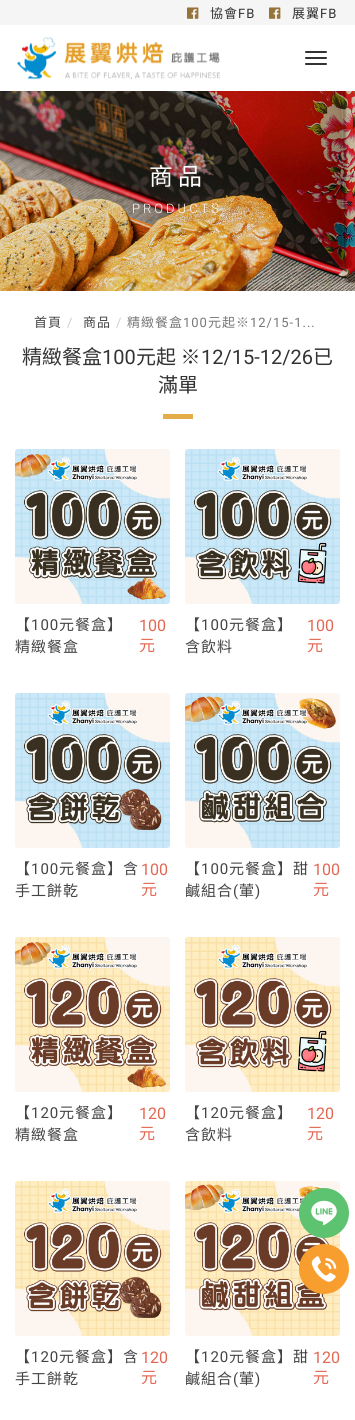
import math
import cairo



def draw_spaced(context, x, y, s, letter, word):
    context.move_to(x, y)
    for ch in s:
        context.show_text(ch)
        context.rel_move_to(letter + word * (ch == ' '), 0)


def rounded_rect(context, x, y, w, h, r):
    context.new_sub_path()
    for i, (u, v) in enumerate([(x + w - r, y + h - r), (x + r, y + h - r), (x + r, y + r), (x + w - r, y + r)]):
        context.arc(u, v, r, i * math.pi / 2, (i + 1) * math.pi / 2)
    context.close_path()


def draw_image(context, path, x, y, w, h):
    context.save()
    context.set_source_surface(cairo.ImageSurface.create_from_png(path), x, y)
    context.rectangle(x, y, w, h)
    context.fill()
    context.restore()


def draw(context):
    context.set_source_rgb(1, 1, 1)
    context.paint()
    context.set_source_rgb(245 / 255, 245 / 255, 245 / 255)
    context.rectangle(0, 0, 355, 25)
    context.fill()
    draw_image(context, "images/1.png", 187, 7, 12, 12)
    draw_image(context, "images/1.png", 269, 7, 12, 12)
    draw_image(context, "images/2.png", 17, 37, 203, 43)
    context.set_source_rgb(51 / 255, 51 / 255, 51 / 255)
    rounded_rect(context, 305, 51, 22, 2, 1)
    context.fill()
    rounded_rect(context, 305, 57, 22, 2, 1)
    context.fill()
    rounded_rect(context, 305, 63, 22, 2, 1)
    context.fill()
    draw_image(context, "images/3.png", 0, 91, 355, 200)
    context.set_source_rgb(229 / 255, 173 / 255, 74 / 255)
    context.rectangle(163, 414, 30, 5)
    context.fill()
    draw_image(context, "images/4.png", 15, 449, 155, 155)
    draw_image(context, "images/5.png", 185, 449, 155, 155)
    draw_image(context, "images/6.png", 15, 693, 155, 155)
    draw_image(context, "images/7.png", 185, 693, 155, 155)
    draw_image(context, "images/8.png", 15, 937, 155, 155)
    draw_image(context, "images/9.png", 185, 937, 155, 155)
    draw_image(context, "images/10.png", 15, 1181, 155, 155)
    draw_image(context, "images/11.png", 185, 1181, 155, 155)
    context.set_source_rgb(93 / 255, 195 / 255, 113 / 255)
    context.arc(324, 1213, 25, 0, 2 * math.pi)
    context.fill()
    draw_image(context, "images/12.png", 311, 1200, 26, 26)
    context.set_source_rgb(247 / 255, 158 / 255, 47 / 255)
    context.arc(324, 1269, 25, 0, 2 * math.pi)
    context.fill()
    draw_image(context, "images/13.png", 311, 1256, 26, 26)
    context.select_font_face("Noto Sans TC")
    context.set_font_size(13)
    context.set_source_rgb(51 / 255, 51 / 255, 51 / 255)
    draw_spaced(context, 210, 18, "協會", 1, 0)
    context.select_font_face("Roboto")
    draw_spaced(context, 238, 18, "FB", 1, 0)
    context.select_font_face("Noto Sans TC")
    draw_spaced(context, 292, 18, "展翼", 1, 0)
    context.select_font_face("Roboto")
    draw_spaced(context, 320, 18, "FB", 1, 0)
    context.select_font_face("Noto Sans TC")
    context.set_font_size(24)
    context.set_source_rgb(1, 1, 1)
    draw_spaced(context, 149, 185, "商品", 5, 0)
    context.select_font_face("Roboto Light")
    context.set_font_size(13)
    draw_spaced(context, 132, 213, "PRODUCTS", 3, 0)
    context.select_font_face("Noto Sans TC")
    context.set_source_rgb(68 / 255, 68 / 255, 68 / 255)
    draw_spaced(context, 34, 327, "首頁", 1, 0)
    context.select_font_face("Roboto")
    context.set_source_rgb(204 / 255, 204 / 255, 204 / 255)
    draw_spaced(context, 67, 327, "/", 1, 0)
    context.select_font_face("Noto Sans TC")
    context.set_source_rgb(68 / 255, 68 / 255, 68 / 255)
    draw_spaced(context, 83, 327, "商品", 1, 0)
    context.select_font_face("Roboto")
    context.set_source_rgb(204 / 255, 204 / 255, 204 / 255)
    draw_spaced(context, 116, 327, "/", 1, 0)
    context.select_font_face("Noto Sans TC")
    context.set_source_rgb(119 / 255, 119 / 255, 119 / 255)
    draw_spaced(context, 127, 327, "精緻餐盒", 1, 0)
    context.select_font_face("Roboto")
    draw_spaced(context, 183, 327, "100", 1, 0)
    context.select_font_face("Noto Sans TC")
    draw_spaced(context, 208, 327, "元起※", 1, 0)
    context.select_font_face("Roboto")
    draw_spaced(context, 250, 327, "12/15-1...", 1, 0)
    context.select_font_face("Noto Sans TC")
    context.set_font_size(20)
    context.set_source_rgb(51 / 255, 51 / 255, 51 / 255)
    context.move_to(22, 364)
    context.show_text("精緻餐盒")
    context.select_font_face("Roboto")
    context.move_to(102, 364)
    context.show_text("100")
    context.select_font_face("Noto Sans TC")
    context.move_to(136, 364)
    context.show_text("元起 ※")
    context.select_font_face("Roboto")
    context.move_to(201, 364)
    context.show_text("12/15-12/26")
    context.select_font_face("Noto Sans TC")
    context.move_to(313, 364)
    context.show_text("已")
    context.move_to(158, 392)
    context.show_text("滿單")
    context.set_font_size(15)
    context.set_source_rgb(68 / 255, 68 / 255, 68 / 255)
    draw_spaced(context, 15, 630, "【", 1, 0)
    context.select_font_face("Roboto")
    draw_spaced(context, 31, 630, "100", 1, 0)
    context.select_font_face("Noto Sans TC")
    draw_spaced(context, 59, 630, "元餐盒】", 1, 0)
    draw_spaced(context, 15, 652, "精緻餐盒", 1, 0)
    context.select_font_face("Roboto")
    context.set_font_size(16)
    context.set_source_rgb(227 / 255, 103 / 255, 82 / 255)
    context.move_to(139, 631)
    context.show_text("100")
    context.select_font_face("Noto Sans TC")
    context.move_to(139, 651)
    context.show_text("元")
    context.set_font_size(15)
    context.set_source_rgb(68 / 255, 68 / 255, 68 / 255)
    draw_spaced(context, 185, 630, "【", 1, 0)
    context.select_font_face("Roboto")
    draw_spaced(context, 201, 630, "100", 1, 0)
    context.select_font_face("Noto Sans TC")
    draw_spaced(context, 229, 630, "元餐盒】", 1, 0)
    draw_spaced(context, 185, 652, "含飲料", 1, 0)
    context.select_font_face("Roboto")
    context.set_font_size(16)
    context.set_source_rgb(227 / 255, 103 / 255, 82 / 255)
    context.move_to(307, 631)
    context.show_text("100")
    context.select_font_face("Noto Sans TC")
    context.move_to(307, 651)
    context.show_text("元")
    context.set_font_size(15)
    context.set_source_rgb(68 / 255, 68 / 255, 68 / 255)
    draw_spaced(context, 15, 874, "【", 1, 0)
    context.select_font_face("Roboto")
    draw_spaced(context, 31, 874, "100", 1, 0)
    context.select_font_face("Noto Sans TC")
    draw_spaced(context, 59, 874, "元餐盒】含", 1, 0)
    draw_spaced(context, 15, 896, "手工餅乾", 1, 0)
    context.select_font_face("Roboto")
    context.set_font_size(16)
    context.set_source_rgb(227 / 255, 103 / 255, 82 / 255)
    context.move_to(141, 875)
    context.show_text("100")
    context.select_font_face("Noto Sans TC")
    context.move_to(141, 895)
    context.show_text("元")
    context.set_font_size(15)
    context.set_source_rgb(68 / 255, 68 / 255, 68 / 255)
    draw_spaced(context, 185, 874, "【", 1, 0)
    context.select_font_face("Roboto")
    draw_spaced(context, 201, 874, "100", 1, 0)
    context.select_font_face("Noto Sans TC")
    draw_spaced(context, 229, 874, "元餐盒】甜", 1, 0)
    draw_spaced(context, 185, 896, "鹹組合", 1, 0)
    context.select_font_face("Roboto")
    draw_spaced(context, 233, 896, "(", 1, 0)
    context.select_font_face("Noto Sans TC")
    draw_spaced(context, 239, 896, "葷", 1, 0)
    context.select_font_face("Roboto")
    draw_spaced(context, 255, 896, ")", 1, 0)
    context.set_font_size(16)
    context.set_source_rgb(227 / 255, 103 / 255, 82 / 255)
    context.move_to(313, 875)
    context.show_text("100")
    context.select_font_face("Noto Sans TC")
    context.move_to(313, 895)
    context.show_text("元")
    context.set_font_size(15)
    context.set_source_rgb(68 / 255, 68 / 255, 68 / 255)
    draw_spaced(context, 15, 1118, "【", 1, 0)
    context.select_font_face("Roboto")
    draw_spaced(context, 31, 1118, "120", 1, 0)
    context.select_font_face("Noto Sans TC")
    draw_spaced(context, 59, 1118, "元餐盒】", 1, 0)
    draw_spaced(context, 15, 1140, "精緻餐盒", 1, 0)
    context.select_font_face("Roboto")
    context.set_font_size(16)
    context.set_source_rgb(227 / 255, 103 / 255, 82 / 255)
    context.move_to(139, 1119)
    context.show_text("120")
    context.select_font_face("Noto Sans TC")
    context.move_to(139, 1139)
    context.show_text("元")
    context.set_font_size(15)
    context.set_source_rgb(68 / 255, 68 / 255, 68 / 255)
    draw_spaced(context, 185, 1118, "【", 1, 0)
    context.select_font_face("Roboto")
    draw_spaced(context, 201, 1118, "120", 1, 0)
    context.select_font_face("Noto Sans TC")
    draw_spaced(context, 229, 1118, "元餐盒】", 1, 0)
    draw_spaced(context, 185, 1140, "含飲料", 1, 0)
    context.select_font_face("Roboto")
    context.set_font_size(16)
    context.set_source_rgb(227 / 255, 103 / 255, 82 / 255)
    context.move_to(307, 1119)
    context.show_text("120")
    context.select_font_face("Noto Sans TC")
    context.move_to(307, 1139)
    context.show_text("元")
    context.set_font_size(15)
    context.set_source_rgb(68 / 255, 68 / 255, 68 / 255)
    draw_spaced(context, 15, 1362, "【", 1, 0)
    context.select_font_face("Roboto")
    draw_spaced(context, 31, 1362, "120", 1, 0)
    context.select_font_face("Noto Sans TC")
    draw_spaced(context, 59, 1362, "元餐盒】含", 1, 0)
    draw_spaced(context, 15, 1384, "手工餅乾", 1, 0)
    context.select_font_face("Roboto")
    context.set_font_size(16)
    context.set_source_rgb(227 / 255, 103 / 255, 82 / 255)
    context.move_to(141, 1363)
    context.show_text("120")
    context.select_font_face("Noto Sans TC")
    context.move_to(141, 1383)
    context.show_text("元")
    context.set_font_size(15)
    context.set_source_rgb(68 / 255, 68 / 255, 68 / 255)
    draw_spaced(context, 185, 1362, "【", 1, 0)
    context.select_font_face("Roboto")
    draw_spaced(context, 201, 1362, "120", 1, 0)
    context.select_font_face("Noto Sans TC")
    draw_spaced(context, 229, 1362, "元餐盒】甜", 1, 0)
    draw_spaced(context, 185, 1384, "鹹組合", 1, 0)
    context.select_font_face("Roboto")
    draw_spaced(context, 233, 1384, "(", 1, 0)
    context.select_font_face("Noto Sans TC")
    draw_spaced(context, 239, 1384, "葷", 1, 0)
    context.select_font_face("Roboto")
    draw_spaced(context, 255, 1384, ")", 1, 0)
    context.set_font_size(16)
    context.set_source_rgb(227 / 255, 103 / 255, 82 / 255)
    context.move_to(313, 1363)
    context.show_text("120")
    context.select_font_face("Noto Sans TC")
    context.move_to(313, 1383)
    context.show_text("元")


surface = cairo.ImageSurface(cairo.Format.RGB24, 355, 1420)
context = cairo.Context(surface)
options = cairo.FontOptions()
options.set_hint_metrics(cairo.HintMetrics.OFF)
options.set_hint_style(cairo.HintStyle.NONE)
context.set_font_options(options)
context.set_miter_limit(4)
draw(context)
surface.write_to_png("out.png")
